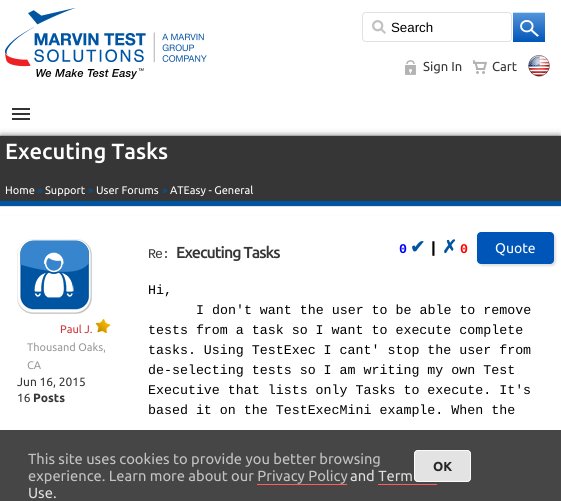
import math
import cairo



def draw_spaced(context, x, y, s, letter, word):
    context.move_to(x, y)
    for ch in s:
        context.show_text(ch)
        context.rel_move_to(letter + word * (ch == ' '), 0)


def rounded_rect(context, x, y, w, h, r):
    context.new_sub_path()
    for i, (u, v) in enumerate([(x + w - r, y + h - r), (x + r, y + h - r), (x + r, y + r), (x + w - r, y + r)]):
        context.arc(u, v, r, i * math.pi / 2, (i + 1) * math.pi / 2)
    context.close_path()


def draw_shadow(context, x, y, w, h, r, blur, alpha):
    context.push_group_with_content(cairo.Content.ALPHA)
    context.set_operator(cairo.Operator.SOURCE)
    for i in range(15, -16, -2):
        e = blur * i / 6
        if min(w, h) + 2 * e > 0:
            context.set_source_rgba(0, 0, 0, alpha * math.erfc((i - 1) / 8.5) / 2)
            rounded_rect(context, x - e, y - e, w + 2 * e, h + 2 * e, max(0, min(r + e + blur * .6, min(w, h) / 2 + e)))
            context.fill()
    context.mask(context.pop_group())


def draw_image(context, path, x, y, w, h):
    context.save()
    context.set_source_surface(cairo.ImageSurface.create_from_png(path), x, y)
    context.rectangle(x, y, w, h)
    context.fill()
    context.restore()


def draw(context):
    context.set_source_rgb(1, 1, 1)
    context.paint()
    draw_image(context, "images/1.png", 5, 8, 202, 72)
    draw_image(context, "images/2.png", 362, 10, 150, 32)
    gradient = cairo.LinearGradient(513, 12, 513, 42)
    gradient.add_color_stop_rgba(0.05, 82 / 255, 146 / 255, 217 / 255, 1)
    gradient.add_color_stop_rgba(1, 0, 86 / 255, 184 / 255, 1)
    context.set_source(gradient)
    context.rectangle(513, 13, 32, 29)
    context.fill()
    context.set_source_rgb(190 / 255, 226 / 255, 249 / 255)
    context.rectangle(513, 12, 32, 1)
    context.fill()
    draw_image(context, "images/3.png", 520, 20, 19, 17)
    draw_image(context, "images/4.png", 405, 60, 11, 15)
    draw_image(context, "images/5.png", 472, 60, 15, 14)
    draw_image(context, "images/6.png", 528, 55, 22, 22)
    context.set_source_rgb(51 / 255, 51 / 255, 51 / 255)
    context.rectangle(12, 113, 18, 2)
    context.fill()
    context.rectangle(12, 108, 18, 2)
    context.fill()
    context.rectangle(12, 118, 18, 2)
    context.fill()
    context.set_source_rgb(225 / 255, 225 / 255, 225 / 255)
    context.rectangle(0, 135, 561, 1)
    context.fill()
    context.set_source_rgb(0, 0, 0)
    draw_shadow(context, 1, 138, 559, 68, 0, 4, 1)
    context.set_source_rgb(54 / 255, 54 / 255, 54 / 255)
    context.rectangle(0, 136, 561, 65)
    context.fill()
    context.set_source_rgb(0, 85 / 255, 162 / 255)
    context.rectangle(0, 201, 561, 5)
    context.fill()
    context.set_source_rgb(1, 1, 1)
    context.rectangle(0, 207, 561, 8)
    context.fill()
    context.set_source_rgb(225 / 255, 225 / 255, 225 / 255)
    context.rectangle(0, 206, 561, 1)
    context.fill()
    draw_image(context, "images/7.png", 17, 239, 75, 75)
    draw_image(context, "images/8.png", 95, 319, 16, 14)
    context.set_source_rgb(224 / 255, 224 / 255, 224 / 255)
    draw_shadow(context, 479, 234, 77, 32, 4, 1, 1)
    context.set_source_rgb(0, 86 / 255, 184 / 255)
    rounded_rect(context, 477, 232, 77, 32, 4)
    context.fill()
    context.set_source_rgba(38 / 255, 38 / 255, 38 / 255, 0.85)
    context.rectangle(0, 430, 561, 71)
    context.fill()
    context.set_source_rgb(1, 92 / 255, 92 / 255)
    context.rectangle(257, 484, 90, 1)
    context.fill()
    context.rectangle(378, 484, 59, 1)
    context.fill()
    context.set_source_rgba(1, 1, 1, 0.85)
    rounded_rect(context, 414, 450, 57, 32, 4)
    context.fill()
    rounded_rect(context, 414.5, 450.5, 56, 31, 3.5)
    context.set_line_width(1)
    context.stroke()
    context.select_font_face("Liberation Sans")
    context.set_font_size(13.3)
    context.set_source_rgb(0, 0, 0)
    context.move_to(391, 32)
    context.show_text("Search")
    context.select_font_face("Ubuntu")
    context.set_font_size(13)
    context.set_source_rgb(54 / 255, 54 / 255, 54 / 255)
    context.move_to(423, 71)
    context.show_text("Sign In")
    context.move_to(492, 71)
    context.show_text("Cart")
    context.select_font_face("Ubuntu Medium")
    context.set_font_size(22)
    context.set_source_rgb(1, 1, 1)
    context.move_to(5, 159)
    context.show_text("Executing Tasks")
    context.select_font_face("Ubuntu")
    context.set_font_size(11)
    context.move_to(5, 194)
    context.show_text("Home")
    context.set_source_rgb(0, 85 / 255, 162 / 255)
    context.move_to(37, 194)
    context.show_text("»")
    context.set_source_rgb(1, 1, 1)
    context.move_to(45, 194)
    context.show_text("Support")
    context.set_source_rgb(0, 85 / 255, 162 / 255)
    context.move_to(88, 194)
    context.show_text("»")
    context.set_source_rgb(1, 1, 1)
    context.move_to(96, 194)
    context.show_text("User Forums")
    context.set_source_rgb(0, 85 / 255, 162 / 255)
    context.move_to(162, 194)
    context.show_text("»")
    context.set_source_rgb(1, 1, 1)
    context.move_to(170, 194)
    context.show_text("ATEasy - General")
    context.set_source_rgb(208 / 255, 52 / 255, 58 / 255)
    context.move_to(60, 333)
    context.show_text("Paul J.")
    context.set_source_rgb(153 / 255, 153 / 255, 153 / 255)
    context.move_to(27, 351)
    context.show_text("Thousand Oaks,")
    context.move_to(27, 369)
    context.show_text("CA")
    context.set_font_size(12)
    context.set_source_rgb(54 / 255, 54 / 255, 54 / 255)
    context.move_to(17, 386)
    context.show_text("Jun 16, 2015")
    context.move_to(17, 402)
    context.show_text("16")
    context.select_font_face("Ubuntu", cairo.FontSlant.NORMAL, cairo.FontWeight.BOLD)
    context.move_to(33, 402)
    context.show_text("Posts")
    context.select_font_face("Liberation Mono")
    context.set_font_size(13.3)
    draw_spaced(context, 148, 258, "Re:", -1, 0)
    context.select_font_face("Ubuntu Medium")
    context.set_font_size(16)
    draw_spaced(context, 176, 258, "Executing Tasks", -1, 0)
    context.select_font_face("Liberation Mono", cairo.FontSlant.NORMAL, cairo.FontWeight.BOLD)
    context.set_font_size(13.3)
    context.set_source_rgb(0, 0, 1)
    context.move_to(399, 253)
    context.show_text("0")
    context.select_font_face("DejaVu Sans", cairo.FontSlant.NORMAL, cairo.FontWeight.BOLD)
    context.set_font_size(18)
    context.set_source_rgb(0, 85 / 255, 162 / 255)
    context.move_to(410, 253)
    context.show_text("✔")
    context.select_font_face("Ubuntu", cairo.FontSlant.NORMAL, cairo.FontWeight.BOLD)
    context.set_font_size(15)
    context.set_source_rgb(0, 0, 0)
    context.move_to(431, 253)
    context.show_text("|")
    context.select_font_face("DejaVu Sans", cairo.FontSlant.NORMAL, cairo.FontWeight.BOLD)
    context.set_font_size(18)
    context.set_source_rgb(0, 85 / 255, 162 / 255)
    context.move_to(442, 253)
    context.show_text("✗")
    context.select_font_face("Liberation Mono", cairo.FontSlant.NORMAL, cairo.FontWeight.BOLD)
    context.set_font_size(13.3)
    context.set_source_rgb(1, 0, 0)
    context.move_to(460, 253)
    context.show_text("0")
    context.select_font_face("Ubuntu")
    context.set_font_size(14)
    context.set_source_rgb(1, 1, 1)
    context.move_to(495, 253)
    context.show_text("Quote")
    context.select_font_face("Liberation Mono")
    context.set_font_size(13.3)
    context.set_source_rgb(0, 0, 0)
    context.move_to(148, 294)
    context.show_text("Hi,")
    context.move_to(196, 314)
    context.show_text("I don't want the user to be able to remove")
    context.move_to(148, 334)
    context.show_text("tests from a task so I want to execute complete")
    context.move_to(148, 354)
    context.show_text("tasks. Using TestExec I cant' stop the user from")
    context.move_to(148, 374)
    context.show_text("de-selecting tests so I am writing my own Test")
    context.move_to(148, 394)
    context.show_text("Executive that lists only Tasks to execute. It's")
    context.move_to(148, 414)
    context.show_text("based it on the TestExecMini example. When the")
    context.select_font_face("Ubuntu")
    context.set_font_size(14.7)
    context.set_source_rgb(195 / 255, 195 / 255, 195 / 255)
    context.move_to(28, 464)
    context.show_text("This site uses cookies to provide you better browsing")
    context.move_to(28, 481)
    context.show_text("experience. Learn more about our Privacy Policy")
    context.set_source_rgb(223 / 255, 223 / 255, 223 / 255)
    context.move_to(350, 481)
    context.show_text("and Term")
    context.move_to(28, 498)
    context.show_text("Use.")
    context.select_font_face("Ubuntu", cairo.FontSlant.NORMAL, cairo.FontWeight.BOLD)
    context.set_font_size(13)
    context.set_source_rgb(38 / 255, 38 / 255, 38 / 255)
    context.move_to(433, 471)
    context.show_text("OK")


surface = cairo.ImageSurface(cairo.Format.RGB24, 561, 501)
context = cairo.Context(surface)
options = cairo.FontOptions()
options.set_hint_metrics(cairo.HintMetrics.OFF)
options.set_hint_style(cairo.HintStyle.NONE)
context.set_font_options(options)
context.set_miter_limit(4)
draw(context)
surface.write_to_png("out.png")
